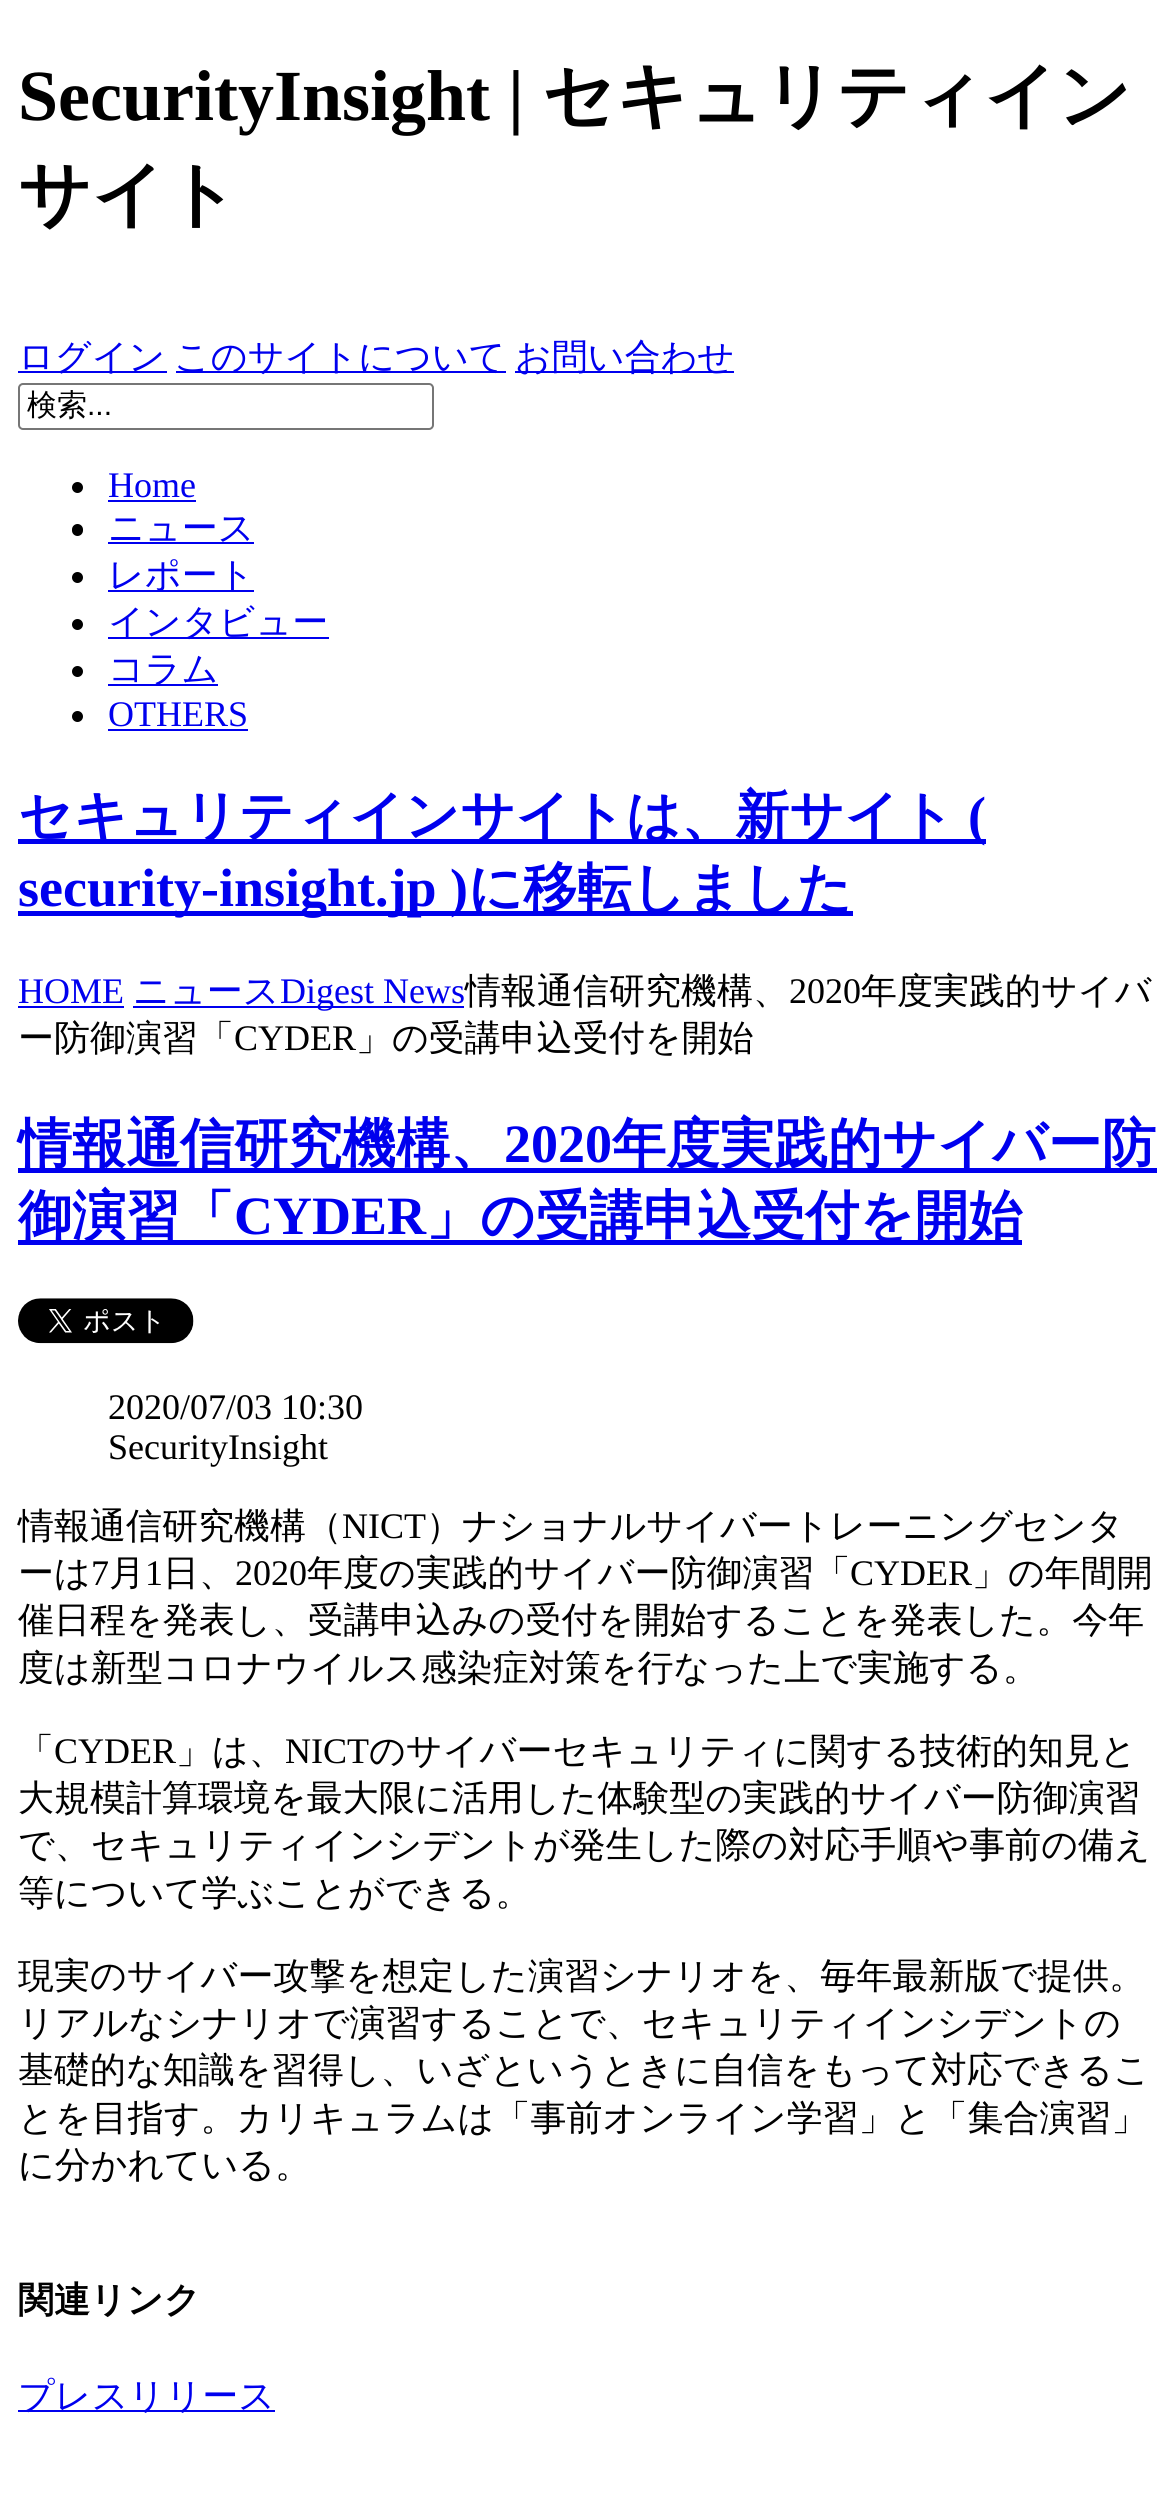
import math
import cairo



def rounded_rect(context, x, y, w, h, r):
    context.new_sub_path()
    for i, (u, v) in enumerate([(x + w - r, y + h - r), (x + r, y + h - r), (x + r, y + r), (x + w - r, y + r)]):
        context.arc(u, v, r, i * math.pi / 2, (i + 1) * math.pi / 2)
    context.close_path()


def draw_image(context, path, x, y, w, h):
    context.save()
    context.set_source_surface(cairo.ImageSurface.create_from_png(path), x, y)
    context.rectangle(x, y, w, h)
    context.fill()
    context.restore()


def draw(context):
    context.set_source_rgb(1, 1, 1)
    context.paint()
    context.set_source_rgb(0, 0, 238 / 255)
    context.rectangle(18, 371, 149, 2)
    context.fill()
    context.rectangle(176, 371, 330, 2)
    context.fill()
    context.rectangle(515, 371, 219, 2)
    context.fill()
    rounded_rect(context, 19, 384, 414, 45, 4)
    context.set_source_rgb(118 / 255, 118 / 255, 118 / 255)
    context.stroke()
    context.set_source_rgb(0, 0, 0)
    context.arc(77.5, 487.5, 5.5, 0, 2 * math.pi)
    context.fill()
    context.set_source_rgb(0, 0, 238 / 255)
    context.rectangle(108, 500, 88, 2)
    context.fill()
    context.set_source_rgb(0, 0, 0)
    rounded_rect(context, 72, 524, 11, 12, 5.5)
    context.fill()
    context.set_source_rgb(0, 0, 238 / 255)
    context.rectangle(108, 542, 146, 2)
    context.fill()
    context.set_source_rgb(0, 0, 0)
    context.arc(77.5, 577.5, 5.5, 0, 2 * math.pi)
    context.fill()
    context.set_source_rgb(0, 0, 238 / 255)
    context.rectangle(108, 590, 146, 2)
    context.fill()
    context.set_source_rgb(0, 0, 0)
    context.arc(77.5, 624.5, 5.5, 0, 2 * math.pi)
    context.fill()
    context.set_source_rgb(0, 0, 238 / 255)
    context.rectangle(108, 637, 221, 2)
    context.fill()
    context.set_source_rgb(0, 0, 0)
    context.arc(77.5, 671.5, 5.5, 0, 2 * math.pi)
    context.fill()
    context.set_source_rgb(0, 0, 238 / 255)
    context.rectangle(108, 684, 110, 2)
    context.fill()
    context.set_source_rgb(0, 0, 0)
    context.arc(77.5, 716.5, 5.5, 0, 2 * math.pi)
    context.fill()
    context.set_source_rgb(0, 0, 238 / 255)
    context.rectangle(108, 729, 140, 2)
    context.fill()
    context.rectangle(18, 839, 968, 5)
    context.fill()
    context.rectangle(18, 911, 835, 5)
    context.fill()
    context.rectangle(18, 1006, 106, 2)
    context.fill()
    context.rectangle(133, 1006, 331, 2)
    context.fill()
    context.rectangle(18, 1168, 1139, 5)
    context.fill()
    context.rectangle(18, 1240, 1004, 5)
    context.fill()
    draw_image(context, "images/1.png", 18, 1298, 176, 46)
    context.rectangle(18, 2410, 257, 2)
    context.fill()
    context.select_font_face("Liberation Serif", cairo.FontSlant.NORMAL, cairo.FontWeight.BOLD)
    context.set_font_size(72)
    context.set_source_rgb(0, 0, 0)
    context.move_to(18, 120)
    context.show_text("SecurityInsight |")
    context.select_font_face("WenQuanYi Zen Hei", cairo.FontSlant.NORMAL, cairo.FontWeight.BOLD)
    context.move_to(542, 120)
    context.show_text("セキュリティイン")
    context.move_to(18, 219)
    context.show_text("サイト")
    context.select_font_face("WenQuanYi Zen Hei Medium")
    context.set_font_size(36)
    context.set_source_rgb(0, 0, 238 / 255)
    context.move_to(18, 369)
    context.show_text("ログイン")
    context.move_to(174, 369)
    context.show_text("このサイトについて")
    context.move_to(515, 369)
    context.show_text("お問い合わせ")
    context.set_font_size(30)
    context.set_source_rgb(0, 0, 0)
    context.move_to(27, 415)
    context.show_text("検索")
    context.select_font_face("Liberation Sans")
    context.move_to(87, 415)
    context.show_text("...")
    context.select_font_face("Liberation Serif")
    context.set_font_size(36)
    context.set_source_rgb(0, 0, 238 / 255)
    context.move_to(108, 497)
    context.show_text("Home")
    context.select_font_face("WenQuanYi Zen Hei Medium")
    context.move_to(108, 540)
    context.show_text("ニュース")
    context.move_to(108, 587)
    context.show_text("レポート")
    context.move_to(108, 634)
    context.show_text("インタビュー")
    context.move_to(108, 681)
    context.show_text("コラム")
    context.select_font_face("Liberation Serif")
    context.move_to(108, 726)
    context.show_text("OTHERS")
    context.select_font_face("WenQuanYi Zen Hei", cairo.FontSlant.NORMAL, cairo.FontWeight.BOLD)
    context.set_font_size(54)
    context.move_to(18, 834)
    context.show_text("セキュリティインサイトは、新サイト")
    context.select_font_face("Liberation Serif", cairo.FontSlant.NORMAL, cairo.FontWeight.BOLD)
    context.move_to(968, 834)
    context.show_text("(")
    context.move_to(18, 906)
    context.show_text("security-insight.jp )")
    context.select_font_face("WenQuanYi Zen Hei", cairo.FontSlant.NORMAL, cairo.FontWeight.BOLD)
    context.move_to(468, 906)
    context.show_text("に移転しました")
    context.select_font_face("Liberation Serif")
    context.set_font_size(36)
    context.move_to(18, 1003)
    context.show_text("HOME")
    context.select_font_face("WenQuanYi Zen Hei Medium")
    context.move_to(133, 1003)
    context.show_text("ニュース")
    context.select_font_face("Liberation Serif")
    context.move_to(280, 1003)
    context.show_text("Digest News")
    context.select_font_face("WenQuanYi Zen Hei Medium")
    context.set_source_rgb(0, 0, 0)
    context.move_to(465, 1003)
    context.show_text("情報通信研究機構、")
    context.select_font_face("Liberation Serif")
    context.move_to(789, 1003)
    context.show_text("2020")
    context.select_font_face("WenQuanYi Zen Hei Medium")
    context.move_to(861, 1003)
    context.show_text("年度実践的サイバ")
    context.move_to(18, 1050)
    context.show_text("ー防御演習「")
    context.select_font_face("Liberation Serif")
    context.move_to(234, 1050)
    context.show_text("CYDER")
    context.select_font_face("WenQuanYi Zen Hei Medium")
    context.move_to(356, 1050)
    context.show_text("」の受講申込受付を開始")
    context.select_font_face("WenQuanYi Zen Hei", cairo.FontSlant.NORMAL, cairo.FontWeight.BOLD)
    context.set_font_size(54)
    context.set_source_rgb(0, 0, 238 / 255)
    context.move_to(18, 1162)
    context.show_text("情報通信研究機構、")
    context.select_font_face("Liberation Serif", cairo.FontSlant.NORMAL, cairo.FontWeight.BOLD)
    context.move_to(504, 1162)
    context.show_text("2020")
    context.select_font_face("WenQuanYi Zen Hei", cairo.FontSlant.NORMAL, cairo.FontWeight.BOLD)
    context.move_to(612, 1162)
    context.show_text("年度実践的サイバー防")
    context.move_to(18, 1234)
    context.show_text("御演習「")
    context.select_font_face("Liberation Serif", cairo.FontSlant.NORMAL, cairo.FontWeight.BOLD)
    context.move_to(234, 1234)
    context.show_text("CYDER")
    context.select_font_face("WenQuanYi Zen Hei", cairo.FontSlant.NORMAL, cairo.FontWeight.BOLD)
    context.move_to(426, 1234)
    context.show_text("」の受講申込受付を開始")
    context.select_font_face("Liberation Serif")
    context.set_font_size(36)
    context.set_source_rgb(0, 0, 0)
    context.move_to(108, 1419)
    context.show_text("2020/07/03 10:30")
    context.move_to(108, 1459)
    context.show_text("SecurityInsight")
    context.select_font_face("WenQuanYi Zen Hei Medium")
    context.move_to(18, 1538)
    context.show_text("情報通信研究機構（")
    context.select_font_face("Liberation Serif")
    context.move_to(342, 1538)
    context.show_text("NICT")
    context.select_font_face("WenQuanYi Zen Hei Medium")
    context.move_to(426, 1538)
    context.show_text("）ナショナルサイバートレーニングセンタ")
    context.move_to(18, 1585)
    context.show_text("ーは")
    context.select_font_face("Liberation Serif")
    context.move_to(91, 1585)
    context.show_text("7")
    context.select_font_face("WenQuanYi Zen Hei Medium")
    context.move_to(109, 1585)
    context.show_text("月")
    context.select_font_face("Liberation Serif")
    context.move_to(145, 1585)
    context.show_text("1")
    context.select_font_face("WenQuanYi Zen Hei Medium")
    context.move_to(163, 1585)
    context.show_text("日、")
    context.select_font_face("Liberation Serif")
    context.move_to(235, 1585)
    context.show_text("2020")
    context.select_font_face("WenQuanYi Zen Hei Medium")
    context.move_to(307, 1585)
    context.show_text("年度の実践的サイバー防御演習「")
    context.select_font_face("Liberation Serif")
    context.move_to(850, 1585)
    context.show_text("CYDER")
    context.select_font_face("WenQuanYi Zen Hei Medium")
    context.move_to(972, 1585)
    context.show_text("」の年間開")
    context.move_to(18, 1632)
    context.show_text("催日程を発表し、受講申込みの受付を開始することを発表した。今年")
    context.move_to(18, 1680)
    context.show_text("度は新型コロナウイルス感染症対策を行なった上で実施する。")
    context.move_to(18, 1763)
    context.show_text("「")
    context.select_font_face("Liberation Serif")
    context.move_to(54, 1763)
    context.show_text("CYDER")
    context.select_font_face("WenQuanYi Zen Hei Medium")
    context.move_to(176, 1763)
    context.show_text("」は、")
    context.select_font_face("Liberation Serif")
    context.move_to(285, 1763)
    context.show_text("NICT")
    context.select_font_face("WenQuanYi Zen Hei Medium")
    context.move_to(369, 1763)
    context.show_text("のサイバーセキュリティに関する技術的知見と")
    context.move_to(18, 1810)
    context.show_text("大規模計算環境を最大限に活用した体験型の実践的サイバー防御演習")
    context.move_to(18, 1857)
    context.show_text("で、セキュリティインシデントが発生した際の対応手順や事前の備え")
    context.move_to(18, 1905)
    context.show_text("等について学ぶことができる。")
    context.move_to(18, 1988)
    context.show_text("現実のサイバー攻撃を想定した演習シナリオを、毎年最新版で提供。")
    context.move_to(18, 2035)
    context.show_text("リアルなシナリオで演習することで、セキュリティインシデントの")
    context.move_to(18, 2082)
    context.show_text("基礎的な知識を習得し、いざというときに自信をもって対応できるこ")
    context.move_to(18, 2130)
    context.show_text("とを目指す。カリキュラムは「事前オンライン学習」と「集合演習」")
    context.move_to(18, 2177)
    context.show_text("に分かれている。")
    context.select_font_face("WenQuanYi Zen Hei", cairo.FontSlant.NORMAL, cairo.FontWeight.BOLD)
    context.move_to(18, 2312)
    context.show_text("関連リンク")
    context.select_font_face("WenQuanYi Zen Hei Medium")
    context.set_source_rgb(0, 0, 238 / 255)
    context.move_to(18, 2408)
    context.show_text("プレスリリース")


surface = cairo.ImageSurface(cairo.Format.RGB24, 1174, 2494)
context = cairo.Context(surface)
options = cairo.FontOptions()
options.set_hint_metrics(cairo.HintMetrics.OFF)
options.set_hint_style(cairo.HintStyle.NONE)
context.set_font_options(options)
context.set_miter_limit(4)
draw(context)
surface.write_to_png("out.png")
